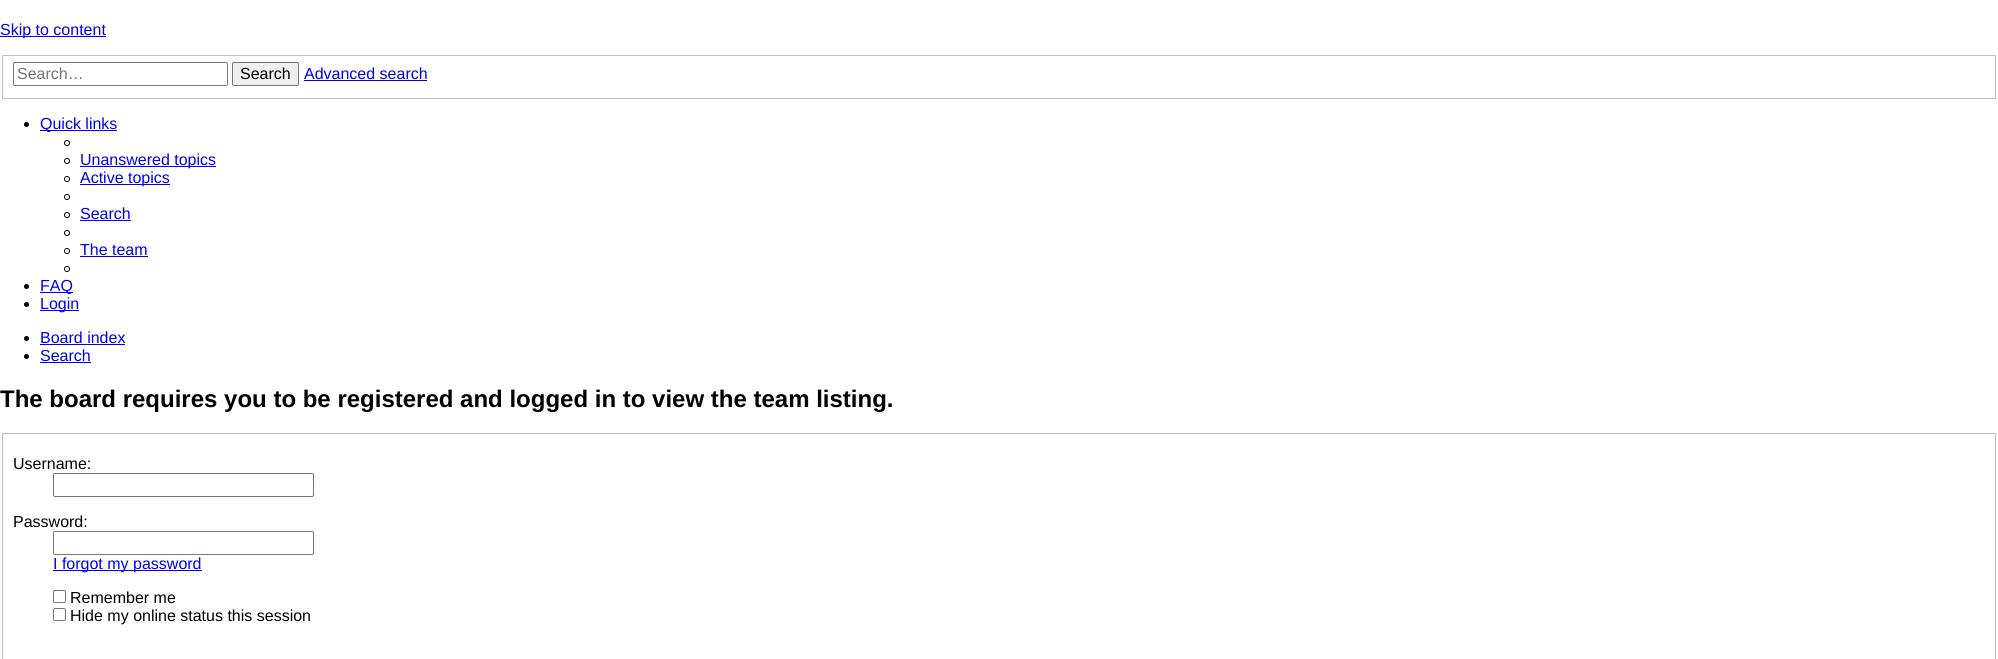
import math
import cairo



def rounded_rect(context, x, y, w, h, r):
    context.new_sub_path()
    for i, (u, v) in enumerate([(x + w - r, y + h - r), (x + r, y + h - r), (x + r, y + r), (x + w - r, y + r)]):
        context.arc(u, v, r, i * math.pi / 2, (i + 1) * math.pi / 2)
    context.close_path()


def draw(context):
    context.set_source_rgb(1, 1, 1)
    context.paint()
    context.set_source_rgb(0, 0, 238 / 255)
    context.rectangle(0, 36, 106, 1)
    context.fill()
    context.rectangle(2.5, 55.5, 1993, 43)
    context.set_source_rgb(192 / 255, 192 / 255, 192 / 255)
    context.set_line_width(1)
    context.stroke()
    rounded_rect(context, 13.5, 62.5, 214, 23, 1.5)
    context.set_source_rgb(118 / 255, 118 / 255, 118 / 255)
    context.stroke()
    context.set_source_rgb(239 / 255, 239 / 255, 239 / 255)
    rounded_rect(context, 232.5, 62.5, 66, 23, 1.5)
    context.fill_preserve()
    context.set_source_rgb(118 / 255, 118 / 255, 118 / 255)
    context.stroke()
    context.set_source_rgb(0, 0, 238 / 255)
    context.rectangle(304, 80, 123, 1)
    context.fill()
    context.set_source_rgb(0, 0, 0)
    context.arc(26.5, 124.5, 2.5, 0, 2 * math.pi)
    context.fill()
    context.set_source_rgb(0, 0, 238 / 255)
    context.rectangle(40, 130, 77, 1)
    context.fill()
    context.arc(67, 143, 2.5, 0, 2 * math.pi)
    context.set_source_rgb(0, 0, 0)
    context.stroke()
    context.arc(67, 161, 2.5, 0, 2 * math.pi)
    context.stroke()
    context.set_source_rgb(0, 0, 238 / 255)
    context.rectangle(80, 166, 136, 1)
    context.fill()
    context.arc(67, 179, 2.5, 0, 2 * math.pi)
    context.set_source_rgb(0, 0, 0)
    context.stroke()
    context.set_source_rgb(0, 0, 238 / 255)
    context.rectangle(80, 184, 90, 1)
    context.fill()
    context.arc(67, 197, 2.5, 0, 2 * math.pi)
    context.set_source_rgb(0, 0, 0)
    context.stroke()
    context.arc(67, 215, 2.5, 0, 2 * math.pi)
    context.stroke()
    context.set_source_rgb(0, 0, 238 / 255)
    context.rectangle(80, 220, 51, 1)
    context.fill()
    context.arc(67, 233, 2.5, 0, 2 * math.pi)
    context.set_source_rgb(0, 0, 0)
    context.stroke()
    context.arc(67, 251, 2.5, 0, 2 * math.pi)
    context.stroke()
    context.set_source_rgb(0, 0, 238 / 255)
    context.rectangle(80, 256, 68, 1)
    context.fill()
    context.arc(67, 269, 2.5, 0, 2 * math.pi)
    context.set_source_rgb(0, 0, 0)
    context.stroke()
    context.arc(26.5, 286.5, 2.5, 0, 2 * math.pi)
    context.fill()
    context.set_source_rgb(0, 0, 238 / 255)
    context.rectangle(40, 292, 33, 1)
    context.fill()
    context.set_source_rgb(0, 0, 0)
    context.arc(26.5, 304.5, 2.5, 0, 2 * math.pi)
    context.fill()
    context.set_source_rgb(0, 0, 238 / 255)
    context.rectangle(40, 310, 39, 1)
    context.fill()
    context.set_source_rgb(0, 0, 0)
    context.arc(26.5, 338.5, 2.5, 0, 2 * math.pi)
    context.fill()
    context.set_source_rgb(0, 0, 238 / 255)
    context.rectangle(40, 344, 85, 1)
    context.fill()
    context.set_source_rgb(0, 0, 0)
    context.arc(26.5, 356.5, 2.5, 0, 2 * math.pi)
    context.fill()
    context.set_source_rgb(0, 0, 238 / 255)
    context.rectangle(40, 362, 51, 1)
    context.fill()
    context.rectangle(2.5, 433.5, 1993, 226)
    context.set_source_rgb(192 / 255, 192 / 255, 192 / 255)
    context.stroke()
    rounded_rect(context, 53.5, 473.5, 260, 23, 1.5)
    context.set_source_rgb(118 / 255, 118 / 255, 118 / 255)
    context.stroke()
    rounded_rect(context, 53.5, 531.5, 260, 23, 1.5)
    context.stroke()
    context.set_source_rgb(0, 0, 238 / 255)
    context.rectangle(53, 570, 149, 1)
    context.fill()
    rounded_rect(context, 53.5, 590.5, 12, 12, 1.5)
    context.set_source_rgb(118 / 255, 118 / 255, 118 / 255)
    context.stroke()
    rounded_rect(context, 53.5, 608.5, 12, 12, 1.5)
    context.stroke()
    context.select_font_face("Liberation Sans")
    context.set_font_size(16)
    context.set_source_rgb(0, 0, 238 / 255)
    context.move_to(0, 35)
    context.show_text("Skip to content")
    context.set_source_rgb(117 / 255, 117 / 255, 117 / 255)
    context.move_to(17, 79)
    context.show_text("Search…")
    context.set_source_rgb(0, 0, 0)
    context.move_to(240, 79)
    context.show_text("Search")
    context.set_source_rgb(0, 0, 238 / 255)
    context.move_to(304, 79)
    context.show_text("Advanced search")
    context.move_to(40, 129)
    context.show_text("Quick links")
    context.move_to(80, 165)
    context.show_text("Unanswered topics")
    context.move_to(80, 183)
    context.show_text("Active topics")
    context.move_to(80, 219)
    context.show_text("Search")
    context.move_to(80, 255)
    context.show_text("The team")
    context.move_to(40, 291)
    context.show_text("FAQ")
    context.move_to(40, 309)
    context.show_text("Login")
    context.move_to(40, 343)
    context.show_text("Board index")
    context.move_to(40, 361)
    context.show_text("Search")
    context.select_font_face("Liberation Sans", cairo.FontSlant.NORMAL, cairo.FontWeight.BOLD)
    context.set_font_size(24)
    context.set_source_rgb(0, 0, 0)
    context.move_to(0, 407)
    context.show_text("The board requires you to be registered and logged in to view the team listing.")
    context.select_font_face("Liberation Sans")
    context.set_font_size(16)
    context.move_to(13, 469)
    context.show_text("Username:")
    context.move_to(13, 527)
    context.show_text("Password:")
    context.set_source_rgb(0, 0, 238 / 255)
    context.move_to(53, 569)
    context.show_text("I forgot my password")
    context.set_source_rgb(0, 0, 0)
    context.move_to(70, 603)
    context.show_text("Remember me")
    context.move_to(70, 621)
    context.show_text("Hide my online status this session")


surface = cairo.ImageSurface(cairo.Format.RGB24, 1998, 659)
context = cairo.Context(surface)
options = cairo.FontOptions()
options.set_hint_metrics(cairo.HintMetrics.OFF)
options.set_hint_style(cairo.HintStyle.NONE)
context.set_font_options(options)
context.set_miter_limit(4)
draw(context)
surface.write_to_png("out.png")
